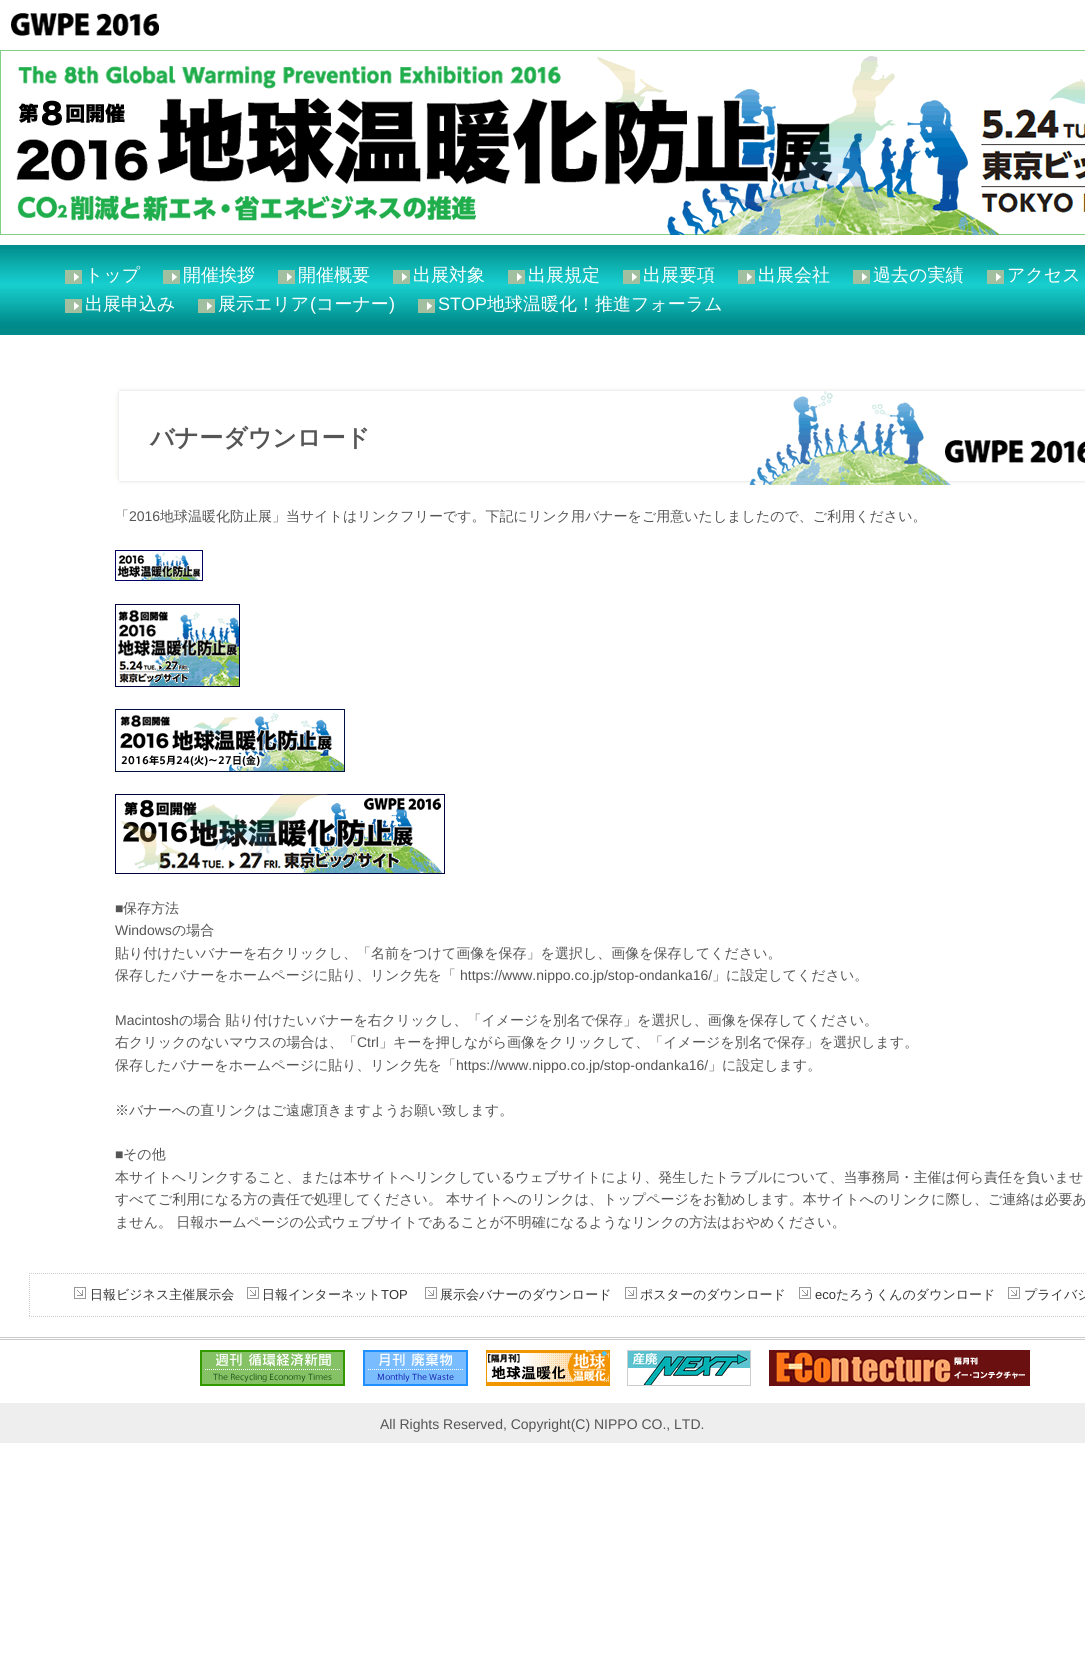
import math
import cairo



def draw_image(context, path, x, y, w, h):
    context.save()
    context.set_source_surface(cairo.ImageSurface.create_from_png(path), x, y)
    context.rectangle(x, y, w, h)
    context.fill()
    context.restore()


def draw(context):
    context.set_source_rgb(1, 1, 1)
    context.paint()
    draw_image(context, "images/1.png", 11, 13, 148, 23)
    draw_image(context, "images/2.png", 0, 50, 1085, 185)
    draw_image(context, "images/3.png", 0, 245, 1085, 90)
    draw_image(context, "images/4.png", 65, 270, 17, 14)
    draw_image(context, "images/4.png", 163, 270, 17, 14)
    draw_image(context, "images/4.png", 278, 270, 17, 14)
    draw_image(context, "images/4.png", 393, 270, 17, 14)
    draw_image(context, "images/4.png", 508, 270, 17, 14)
    draw_image(context, "images/4.png", 623, 270, 17, 14)
    draw_image(context, "images/4.png", 738, 270, 17, 14)
    draw_image(context, "images/4.png", 853, 270, 17, 14)
    draw_image(context, "images/4.png", 987, 270, 17, 14)
    draw_image(context, "images/4.png", 65, 299, 17, 14)
    draw_image(context, "images/4.png", 198, 299, 17, 14)
    draw_image(context, "images/4.png", 418, 299, 17, 14)
    draw_image(context, "images/5.png", 115, 388, 970, 97)
    draw_image(context, "images/6.png", 115, 550, 88, 31)
    draw_image(context, "images/7.png", 115, 604, 125, 83)
    draw_image(context, "images/8.png", 115, 709, 230, 63)
    draw_image(context, "images/9.png", 115, 794, 330, 80)
    context.new_path()
    context.move_to(29, 1273.5)
    context.line_to(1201, 1273.5)
    context.set_source_rgb(204 / 255, 204 / 255, 204 / 255)
    context.set_line_width(1)
    context.set_dash([1, 1])
    context.stroke()
    context.new_path()
    context.move_to(29, 1316.5)
    context.line_to(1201, 1316.5)
    context.stroke()
    context.new_path()
    context.move_to(29.5, 1273)
    context.line_to(29.5, 1317)
    context.stroke()
    draw_image(context, "images/10.png", 74, 1287, 12, 12)
    draw_image(context, "images/10.png", 247, 1287, 12, 12)
    draw_image(context, "images/10.png", 425, 1287, 12, 12)
    draw_image(context, "images/10.png", 625, 1287, 12, 12)
    draw_image(context, "images/10.png", 799, 1287, 12, 12)
    draw_image(context, "images/10.png", 1008, 1287, 12, 12)
    context.rectangle(0, 1337, 1085, 1)
    context.fill()
    context.rectangle(0, 1339, 1085, 1)
    context.fill()
    draw_image(context, "images/11.png", 200, 1350, 145, 36)
    draw_image(context, "images/12.png", 363, 1350, 105, 36)
    draw_image(context, "images/13.png", 486, 1350, 124, 36)
    draw_image(context, "images/14.png", 627, 1350, 124, 36)
    draw_image(context, "images/15.png", 769, 1350, 261, 36)
    context.set_source_rgb(238 / 255, 238 / 255, 238 / 255)
    context.rectangle(0, 1403, 1085, 40)
    context.fill()
    context.select_font_face("WenQuanYi Zen Hei Medium")
    context.set_font_size(18)
    context.set_source_rgb(1, 1, 1)
    context.move_to(85, 281)
    context.show_text("トップ")
    context.move_to(183, 281)
    context.show_text("開催挨拶")
    context.move_to(298, 281)
    context.show_text("開催概要")
    context.move_to(413, 281)
    context.show_text("出展対象")
    context.move_to(528, 281)
    context.show_text("出展規定")
    context.move_to(643, 281)
    context.show_text("出展要項")
    context.move_to(758, 281)
    context.show_text("出展会社")
    context.move_to(873, 281)
    context.show_text("過去の実績")
    context.move_to(1007, 281)
    context.show_text("アクセス")
    context.move_to(85, 310)
    context.show_text("出展申込み")
    context.move_to(218, 310)
    context.show_text("展示エリア")
    context.select_font_face("Liberation Sans")
    context.move_to(310, 310)
    context.show_text("(")
    context.select_font_face("WenQuanYi Zen Hei Medium")
    context.move_to(316, 310)
    context.show_text("コーナー")
    context.select_font_face("Liberation Sans")
    context.move_to(389, 310)
    context.show_text(")")
    context.move_to(438, 310)
    context.show_text("STOP")
    context.select_font_face("WenQuanYi Zen Hei Medium")
    context.move_to(487, 310)
    context.show_text("地球温暖化！推進フォーラム")
    context.select_font_face("WenQuanYi Zen Hei", cairo.FontSlant.NORMAL, cairo.FontWeight.BOLD)
    context.set_font_size(24)
    context.set_source_rgb(85 / 255, 85 / 255, 85 / 255)
    context.move_to(150, 446)
    context.show_text("バナーダウンロード")
    context.select_font_face("WenQuanYi Zen Hei Medium")
    context.set_font_size(14)
    context.move_to(115, 521)
    context.show_text("「")
    context.select_font_face("Liberation Sans")
    context.move_to(129, 521)
    context.show_text("2016")
    context.select_font_face("WenQuanYi Zen Hei Medium")
    context.move_to(160, 521)
    context.show_text("地球温暖化防止展」当サイトはリンクフリーです。下記にリンク用バナーをご用意いたしましたので、ご利用ください。")
    context.select_font_face("Liberation Sans")
    context.move_to(115, 913)
    context.show_text("■")
    context.select_font_face("WenQuanYi Zen Hei Medium")
    context.move_to(123, 913)
    context.show_text("保存方法")
    context.select_font_face("Liberation Sans")
    context.move_to(115, 935)
    context.show_text("Windows")
    context.select_font_face("WenQuanYi Zen Hei Medium")
    context.move_to(172, 935)
    context.show_text("の場合")
    context.move_to(115, 958)
    context.show_text("貼り付けたいバナーを右クリックし、「名前をつけて画像を保存」を選択し、画像を保存してください。")
    context.move_to(115, 980)
    context.show_text("保存したバナーをホームページに貼り、リンク先を「")
    context.select_font_face("Liberation Sans")
    context.move_to(460, 980)
    context.show_text("https://www.nippo.co.jp/stop-ondanka16/")
    context.select_font_face("WenQuanYi Zen Hei Medium")
    context.move_to(712, 980)
    context.show_text("」に設定してください。")
    context.select_font_face("Liberation Sans")
    context.move_to(115, 1025)
    context.show_text("Macintosh")
    context.select_font_face("WenQuanYi Zen Hei Medium")
    context.move_to(179, 1025)
    context.show_text("の場合 貼り付けたいバナーを右クリックし、「イメージを別名で保存」を選択し、画像を保存してください。")
    context.move_to(115, 1047)
    context.show_text("右クリックのないマウスの場合は、「")
    context.select_font_face("Liberation Sans")
    context.move_to(357, 1047)
    context.show_text("Ctrl")
    context.select_font_face("WenQuanYi Zen Hei Medium")
    context.move_to(379, 1047)
    context.show_text("」キーを押しながら画像をクリックして、「イメージを別名で保存」を選択します。")
    context.move_to(115, 1070)
    context.show_text("保存したバナーをホームページに貼り、リンク先を「")
    context.select_font_face("Liberation Sans")
    context.move_to(456, 1070)
    context.show_text("https://www.nippo.co.jp/stop-ondanka16/")
    context.select_font_face("WenQuanYi Zen Hei Medium")
    context.move_to(708, 1070)
    context.show_text("」に設定します。")
    context.move_to(115, 1115)
    context.show_text("※バナーへの直リンクはご遠慮頂きますようお願い致します。")
    context.select_font_face("Liberation Sans")
    context.move_to(115, 1159)
    context.show_text("■")
    context.select_font_face("WenQuanYi Zen Hei Medium")
    context.move_to(123, 1159)
    context.show_text("その他")
    context.move_to(115, 1182)
    context.show_text("本サイトへリンクすること、または本サイトへリンクしているウェブサイトにより、発生したトラブルについて、当事務局・主催は何ら責任を負いませ")
    context.move_to(115, 1204)
    context.show_text("すべてご利用になる方の責任で処理してください。 本サイトへのリンクは、トップページをお勧めします。本サイトへのリンクに際し、ご連絡は必要あ")
    context.move_to(115, 1227)
    context.show_text("ません。 日報ホームページの公式ウェブサイトであることが不明確になるようなリンクの方法はおやめください。")
    context.set_font_size(13)
    context.set_source_rgb(51 / 255, 51 / 255, 51 / 255)
    context.move_to(90, 1299)
    context.show_text("日報ビジネス主催展示会")
    context.move_to(262, 1299)
    context.show_text("日報インターネット")
    context.select_font_face("Liberation Sans")
    context.move_to(381, 1299)
    context.show_text("TOP")
    context.select_font_face("WenQuanYi Zen Hei Medium")
    context.move_to(440, 1299)
    context.show_text("展示会バナーのダウンロード")
    context.move_to(640, 1299)
    context.show_text("ポスターのダウンロード")
    context.select_font_face("Liberation Sans")
    context.move_to(815, 1299)
    context.show_text("eco")
    context.select_font_face("WenQuanYi Zen Hei Medium")
    context.move_to(836, 1299)
    context.show_text("たろうくんのダウンロード")
    context.move_to(1024, 1299)
    context.show_text("プライバシ")
    context.select_font_face("Liberation Sans")
    context.set_font_size(14)
    context.set_source_rgb(85 / 255, 85 / 255, 85 / 255)
    context.move_to(380, 1429)
    context.show_text("All Rights Reserved, Copyright(C) NIPPO CO., LTD.")


surface = cairo.ImageSurface(cairo.Format.RGB24, 1085, 1675)
context = cairo.Context(surface)
options = cairo.FontOptions()
options.set_hint_metrics(cairo.HintMetrics.OFF)
options.set_hint_style(cairo.HintStyle.NONE)
context.set_font_options(options)
context.set_miter_limit(4)
draw(context)
surface.write_to_png("out.png")
